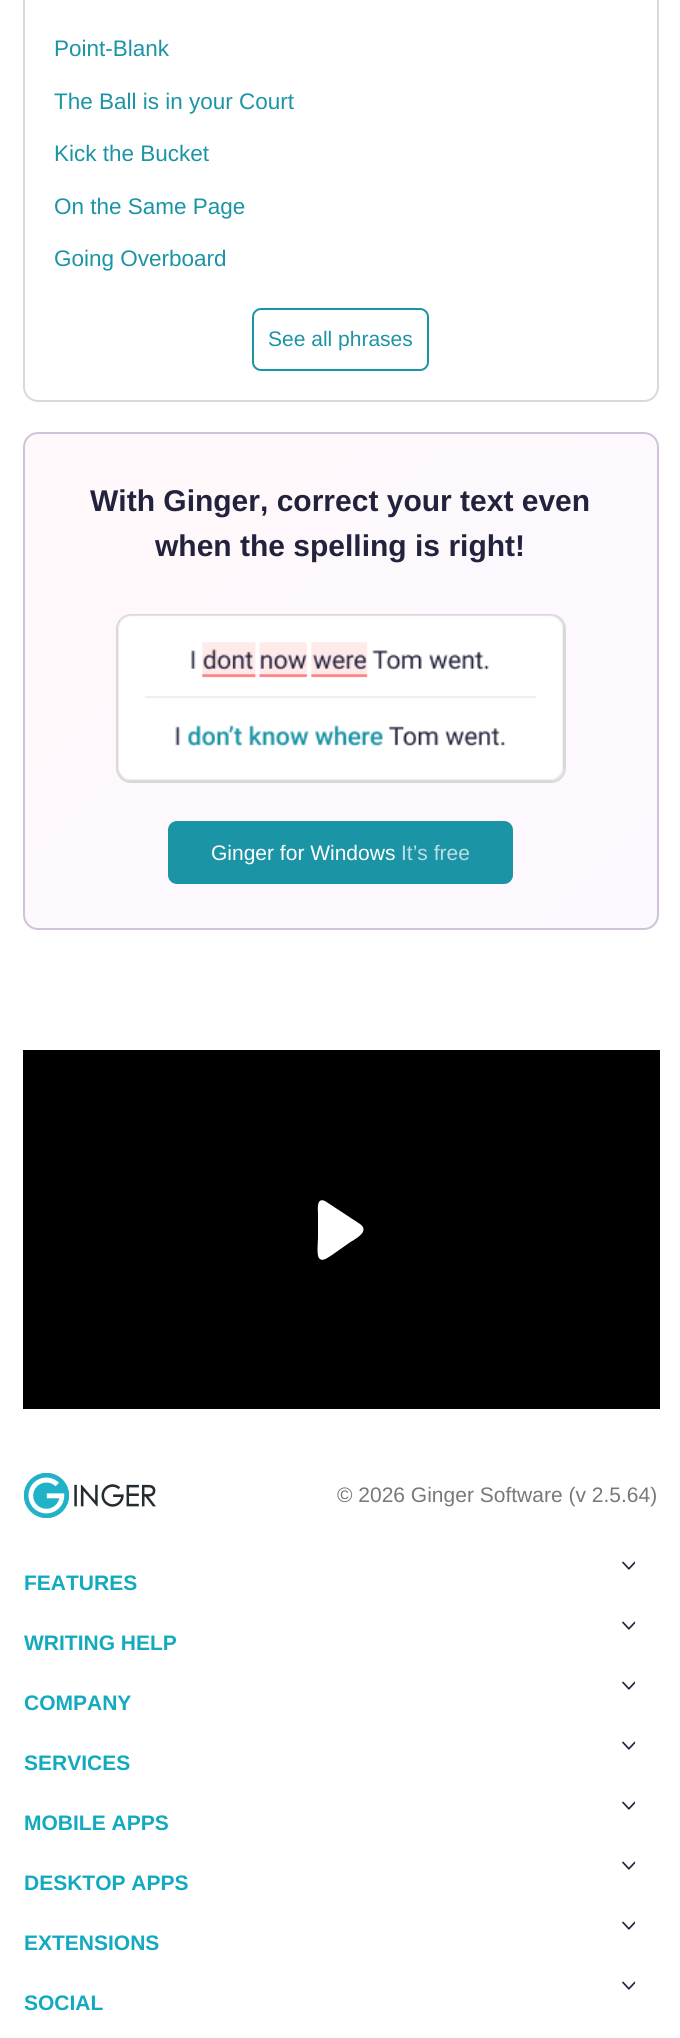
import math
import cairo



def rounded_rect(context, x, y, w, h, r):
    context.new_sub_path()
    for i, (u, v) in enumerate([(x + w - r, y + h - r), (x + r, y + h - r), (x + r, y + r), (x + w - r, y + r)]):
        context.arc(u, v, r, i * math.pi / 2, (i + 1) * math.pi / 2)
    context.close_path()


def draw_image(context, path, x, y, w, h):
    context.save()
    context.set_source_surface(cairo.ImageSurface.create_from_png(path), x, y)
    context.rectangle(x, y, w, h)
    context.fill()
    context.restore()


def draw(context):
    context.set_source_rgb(1, 1, 1)
    context.paint()
    rounded_rect(context, 24, -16, 634, 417, 14)
    context.set_source_rgb(217 / 255, 217 / 255, 217 / 255)
    context.stroke()
    rounded_rect(context, 253, 309, 175, 61, 8)
    context.set_source_rgb(27 / 255, 148 / 255, 166 / 255)
    context.stroke()
    context.save()
    rounded_rect(context, 23, 432, 636, 498, 15)
    context.clip()
    gradient = cairo.LinearGradient(59, 399, 623, 963)
    gradient.add_color_stop_rgba(0, 1, 248 / 255, 250 / 255, 1)
    gradient.add_color_stop_rgba(1, 251 / 255, 248 / 255, 1, 1)
    context.set_source(gradient)
    context.rectangle(24, 434, 633, 495)
    context.fill()
    context.restore()
    rounded_rect(context, 24, 433, 634, 496, 14)
    context.set_source_rgb(208 / 255, 195 / 255, 217 / 255)
    context.stroke()
    rounded_rect(context, 117, 615, 448, 167, 14)
    context.set_source_rgb(217 / 255, 217 / 255, 217 / 255)
    context.stroke()
    draw_image(context, "images/1.png", 118, 615, 446, 166)
    context.set_source_rgb(27 / 255, 148 / 255, 166 / 255)
    rounded_rect(context, 169, 822, 343, 61, 8)
    context.fill_preserve()
    context.stroke()
    context.set_source_rgb(0, 0, 0)
    context.rectangle(23, 1050, 637, 359)
    context.fill()
    context.set_source_rgb(1, 1, 1)
    context.new_path()
    context.move_to(360, 1224)
    context.line_to(325, 1201)
    context.curve_to(316, 1197, 318, 1210, 318, 1214)
    context.line_to(318, 1238)
    context.curve_to(318, 1242, 316, 1257, 320, 1259)
    context.curve_to(323, 1262, 330, 1256, 332, 1255)
    context.line_to(349, 1243)
    context.curve_to(353, 1240, 371, 1232, 360, 1224)
    context.close_path()
    context.fill()
    draw_image(context, "images/2.png", 24, 1473, 132, 45)
    draw_image(context, "images/3.png", 622, 1561, 14, 9)
    draw_image(context, "images/3.png", 622, 1621, 14, 9)
    draw_image(context, "images/3.png", 622, 1681, 14, 9)
    draw_image(context, "images/3.png", 622, 1741, 14, 9)
    draw_image(context, "images/3.png", 622, 1801, 14, 9)
    draw_image(context, "images/3.png", 622, 1861, 14, 9)
    draw_image(context, "images/3.png", 622, 1921, 14, 9)
    draw_image(context, "images/3.png", 622, 1981, 14, 9)
    context.select_font_face("Liberation Sans")
    context.set_font_size(22.5)
    context.set_source_rgb(27 / 255, 148 / 255, 166 / 255)
    context.move_to(54, 56)
    context.show_text("Point-Blank")
    context.move_to(54, 109)
    context.show_text("The Ball is in your Court")
    context.move_to(54, 161)
    context.show_text("Kick the Bucket")
    context.move_to(54, 214)
    context.show_text("On the Same Page")
    context.move_to(54, 266)
    context.show_text("Going Overboard")
    context.set_font_size(21)
    context.move_to(268, 346)
    context.show_text("See all phrases")
    context.select_font_face("Liberation Sans", cairo.FontSlant.NORMAL, cairo.FontWeight.BOLD)
    context.set_font_size(30)
    context.set_source_rgb(34 / 255, 34 / 255, 61 / 255)
    context.move_to(90, 511)
    context.show_text("With Ginger, correct your text even")
    context.move_to(155, 556)
    context.show_text("when the spelling is right!")
    context.select_font_face("Liberation Sans")
    context.set_font_size(21)
    context.set_source_rgb(1, 1, 1)
    context.move_to(211, 860)
    context.show_text("Ginger for Windows")
    context.set_source_rgb(187 / 255, 223 / 255, 228 / 255)
    context.move_to(401, 860)
    context.show_text("It’s free")
    context.set_source_rgb(120 / 255, 120 / 255, 120 / 255)
    context.move_to(337, 1502)
    context.show_text("© 2026 Ginger Software (v 2.5.64)")
    context.select_font_face("Liberation Sans", cairo.FontSlant.NORMAL, cairo.FontWeight.BOLD)
    context.set_source_rgb(19 / 255, 170 / 255, 191 / 255)
    context.move_to(24, 1590)
    context.show_text("FEATURES")
    context.move_to(24, 1650)
    context.show_text("WRITING HELP")
    context.move_to(24, 1710)
    context.show_text("COMPANY")
    context.move_to(24, 1770)
    context.show_text("SERVICES")
    context.move_to(24, 1830)
    context.show_text("MOBILE APPS")
    context.move_to(24, 1890)
    context.show_text("DESKTOP APPS")
    context.move_to(24, 1950)
    context.show_text("EXTENSIONS")
    context.move_to(24, 2010)
    context.show_text("SOCIAL")


surface = cairo.ImageSurface(cairo.Format.RGB24, 680, 2038)
context = cairo.Context(surface)
options = cairo.FontOptions()
options.set_hint_metrics(cairo.HintMetrics.OFF)
options.set_hint_style(cairo.HintStyle.NONE)
context.set_font_options(options)
context.set_miter_limit(4)
draw(context)
surface.write_to_png("out.png")
